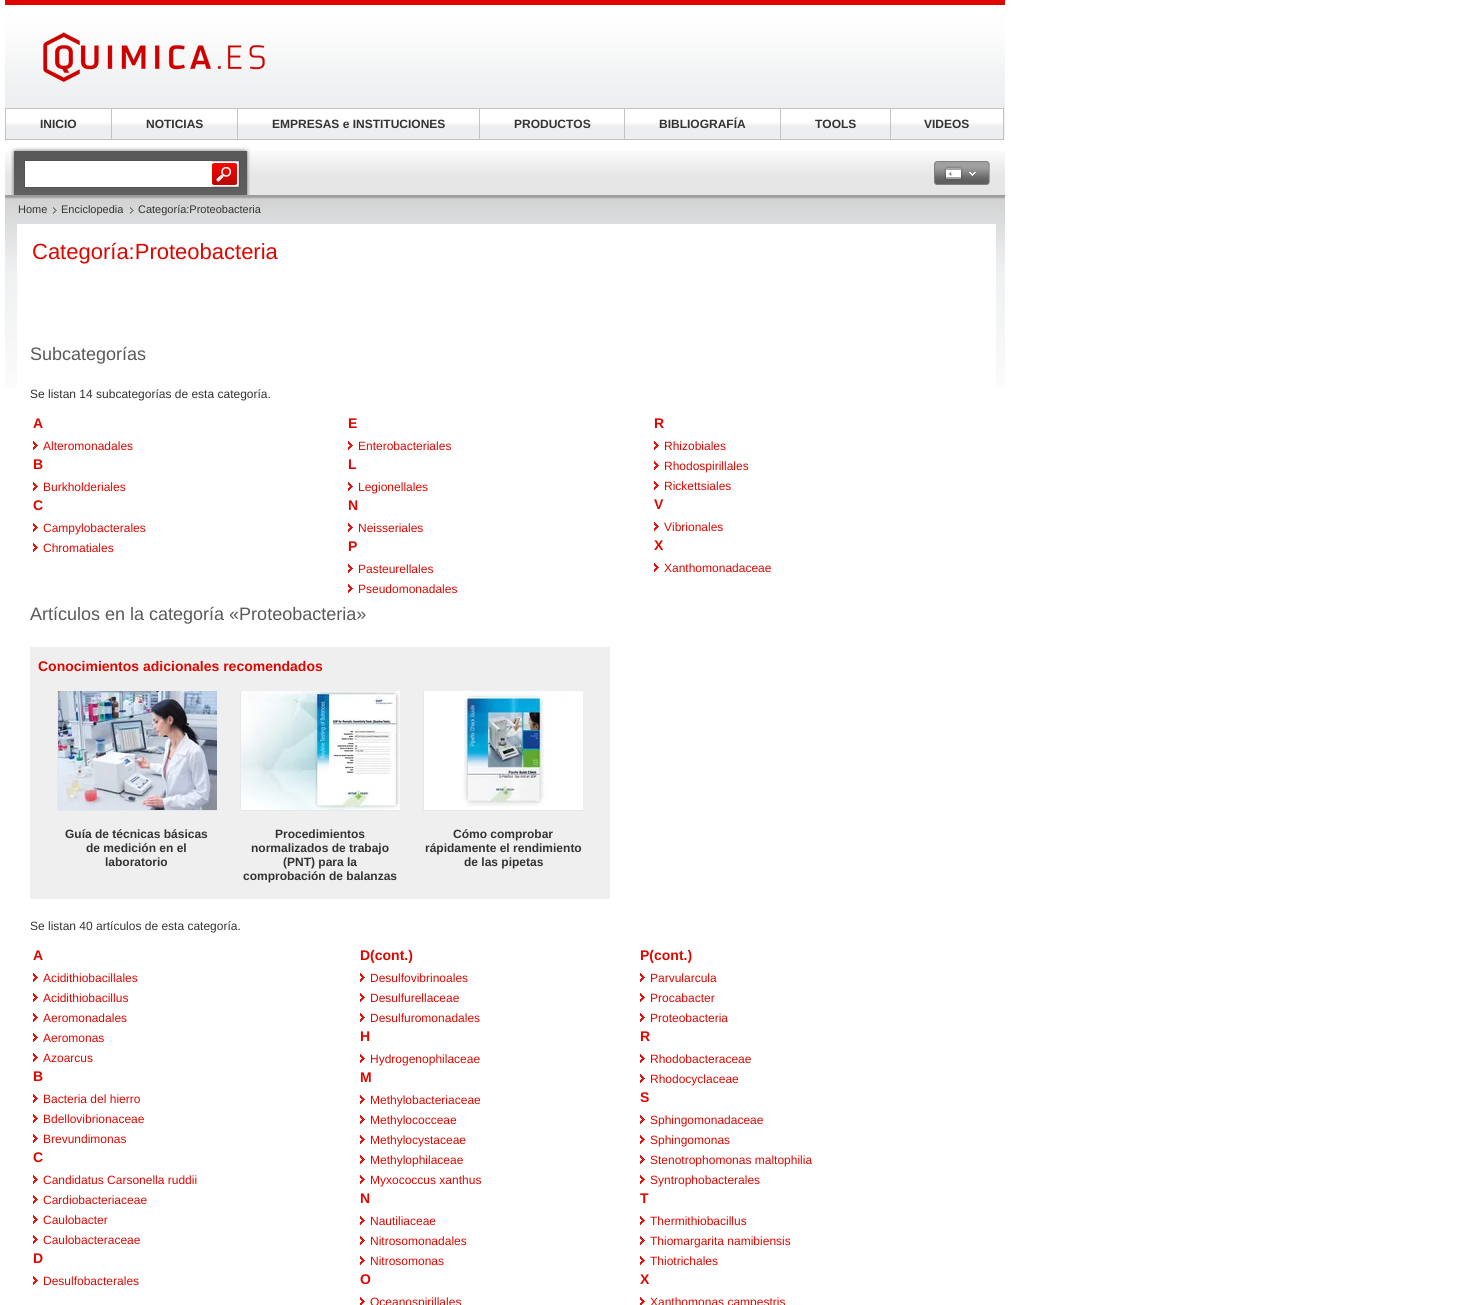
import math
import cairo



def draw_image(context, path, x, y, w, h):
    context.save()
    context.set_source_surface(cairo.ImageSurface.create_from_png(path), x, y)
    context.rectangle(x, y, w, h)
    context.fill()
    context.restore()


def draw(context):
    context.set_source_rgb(1, 1, 1)
    context.paint()
    draw_image(context, "images/1.png", 5, 0, 1000, 140)
    draw_image(context, "images/2.png", 43, 32, 222, 50)
    context.set_source_rgb(195 / 255, 195 / 255, 195 / 255)
    context.rectangle(5, 108, 999, 1)
    context.fill()
    context.rectangle(1003, 108, 1, 32)
    context.fill()
    context.rectangle(5, 139, 999, 1)
    context.fill()
    draw_image(context, "images/3.png", 6, 109, 105, 17)
    context.rectangle(5, 109, 1, 30)
    context.fill()
    draw_image(context, "images/4.png", 112, 109, 125, 17)
    context.rectangle(111, 109, 1, 30)
    context.fill()
    draw_image(context, "images/5.png", 238, 109, 241, 17)
    context.rectangle(237, 109, 1, 30)
    context.fill()
    draw_image(context, "images/6.png", 480, 109, 144, 17)
    context.rectangle(479, 109, 1, 30)
    context.fill()
    draw_image(context, "images/7.png", 625, 109, 155, 17)
    context.rectangle(624, 109, 1, 30)
    context.fill()
    draw_image(context, "images/8.png", 781, 109, 109, 17)
    context.rectangle(780, 109, 1, 30)
    context.fill()
    draw_image(context, "images/9.png", 891, 109, 112, 17)
    context.rectangle(890, 109, 1, 30)
    context.fill()
    draw_image(context, "images/10.png", 5, 151, 1000, 237)
    draw_image(context, "images/11.png", 11, 147, 240, 48)
    context.set_source_rgb(1, 1, 1)
    context.rectangle(25, 161, 187, 26)
    context.fill()
    context.set_source_rgb(83 / 255, 82 / 255, 82 / 255)
    context.rectangle(24, 160, 188, 1)
    context.fill()
    context.rectangle(24, 187, 188, 1)
    context.fill()
    context.rectangle(24, 160, 1, 28)
    context.fill()
    draw_image(context, "images/12.png", 212, 160, 28, 28)
    draw_image(context, "images/13.png", 934, 161, 10, 24)
    draw_image(context, "images/14.png", 980, 161, 10, 24)
    draw_image(context, "images/15.png", 944, 161, 36, 24)
    draw_image(context, "images/16.png", 944, 166, 19, 15)
    draw_image(context, "images/17.png", 969, 172, 7, 4)
    draw_image(context, "images/18.png", 53, 207, 4, 7)
    draw_image(context, "images/18.png", 130, 207, 4, 7)
    context.set_source_rgb(1, 1, 1)
    context.rectangle(17, 224, 979, 164)
    context.fill()
    draw_image(context, "images/19.png", 33, 441, 5, 9)
    draw_image(context, "images/19.png", 33, 482, 5, 9)
    draw_image(context, "images/19.png", 33, 523, 5, 9)
    draw_image(context, "images/19.png", 33, 543, 5, 9)
    draw_image(context, "images/19.png", 348, 441, 5, 9)
    draw_image(context, "images/19.png", 348, 482, 5, 9)
    draw_image(context, "images/19.png", 348, 523, 5, 9)
    draw_image(context, "images/19.png", 348, 564, 5, 9)
    draw_image(context, "images/19.png", 348, 584, 5, 9)
    draw_image(context, "images/19.png", 654, 441, 5, 9)
    draw_image(context, "images/19.png", 654, 461, 5, 9)
    draw_image(context, "images/19.png", 654, 481, 5, 9)
    draw_image(context, "images/19.png", 654, 522, 5, 9)
    draw_image(context, "images/19.png", 654, 563, 5, 9)
    context.set_source_rgb(239 / 255, 239 / 255, 239 / 255)
    context.rectangle(30, 647, 580, 252)
    context.fill()
    context.save()
    context.rectangle(57, 691, 160, 120)
    context.clip()
    context.rectangle(57.5, 689.5, 161, 121)
    context.set_source_rgb(232 / 255, 232 / 255, 232 / 255)
    context.set_line_width(1)
    context.stroke()
    context.restore()
    draw_image(context, "images/20.png", 58, 691, 159, 119)
    context.save()
    context.rectangle(240, 691, 160, 120)
    context.clip()
    context.rectangle(240.5, 689.5, 161, 121)
    context.set_source_rgb(232 / 255, 232 / 255, 232 / 255)
    context.set_line_width(1)
    context.stroke()
    context.restore()
    draw_image(context, "images/21.png", 241, 691, 159, 119)
    context.save()
    context.rectangle(423, 691, 160, 120)
    context.clip()
    context.rectangle(423.5, 689.5, 161, 121)
    context.set_source_rgb(232 / 255, 232 / 255, 232 / 255)
    context.set_line_width(1)
    context.stroke()
    context.restore()
    draw_image(context, "images/22.png", 424, 691, 159, 119)
    draw_image(context, "images/19.png", 33, 973, 5, 9)
    draw_image(context, "images/19.png", 33, 993, 5, 9)
    draw_image(context, "images/19.png", 33, 1013, 5, 9)
    draw_image(context, "images/19.png", 33, 1033, 5, 9)
    draw_image(context, "images/19.png", 33, 1053, 5, 9)
    draw_image(context, "images/19.png", 33, 1094, 5, 9)
    draw_image(context, "images/19.png", 33, 1114, 5, 9)
    draw_image(context, "images/19.png", 33, 1134, 5, 9)
    draw_image(context, "images/19.png", 33, 1175, 5, 9)
    draw_image(context, "images/19.png", 33, 1195, 5, 9)
    draw_image(context, "images/19.png", 33, 1215, 5, 9)
    draw_image(context, "images/19.png", 33, 1235, 5, 9)
    draw_image(context, "images/19.png", 33, 1276, 5, 9)
    draw_image(context, "images/19.png", 360, 973, 5, 9)
    draw_image(context, "images/19.png", 360, 993, 5, 9)
    draw_image(context, "images/19.png", 360, 1013, 5, 9)
    draw_image(context, "images/19.png", 360, 1054, 5, 9)
    draw_image(context, "images/19.png", 360, 1095, 5, 9)
    draw_image(context, "images/19.png", 360, 1115, 5, 9)
    draw_image(context, "images/19.png", 360, 1135, 5, 9)
    draw_image(context, "images/19.png", 360, 1155, 5, 9)
    draw_image(context, "images/19.png", 360, 1175, 5, 9)
    draw_image(context, "images/19.png", 360, 1216, 5, 9)
    draw_image(context, "images/19.png", 360, 1236, 5, 9)
    draw_image(context, "images/19.png", 360, 1256, 5, 9)
    draw_image(context, "images/23.png", 360, 1297, 5, 8)
    draw_image(context, "images/19.png", 640, 973, 5, 9)
    draw_image(context, "images/19.png", 640, 993, 5, 9)
    draw_image(context, "images/19.png", 640, 1013, 5, 9)
    draw_image(context, "images/19.png", 640, 1054, 5, 9)
    draw_image(context, "images/19.png", 640, 1074, 5, 9)
    draw_image(context, "images/19.png", 640, 1115, 5, 9)
    draw_image(context, "images/19.png", 640, 1135, 5, 9)
    draw_image(context, "images/19.png", 640, 1155, 5, 9)
    draw_image(context, "images/19.png", 640, 1175, 5, 9)
    draw_image(context, "images/19.png", 640, 1216, 5, 9)
    draw_image(context, "images/19.png", 640, 1236, 5, 9)
    draw_image(context, "images/19.png", 640, 1256, 5, 9)
    draw_image(context, "images/23.png", 640, 1297, 5, 8)
    context.select_font_face("Liberation Sans", cairo.FontSlant.NORMAL, cairo.FontWeight.BOLD)
    context.set_font_size(12)
    context.set_source_rgb(51 / 255, 51 / 255, 51 / 255)
    context.move_to(40, 128)
    context.show_text("INICIO")
    context.move_to(146, 128)
    context.show_text("NOTICIAS")
    context.move_to(272, 128)
    context.show_text("EMPRESAS e INSTITUCIONES")
    context.move_to(514, 128)
    context.show_text("PRODUCTOS")
    context.move_to(659, 128)
    context.show_text("BIBLIOGRAFÍA")
    context.move_to(815, 128)
    context.show_text("TOOLS")
    context.move_to(924, 128)
    context.show_text("VIDEOS")
    context.select_font_face("Liberation Sans")
    context.set_font_size(11)
    context.move_to(18, 213)
    context.show_text("Home")
    context.move_to(61, 213)
    context.show_text("Enciclopedia")
    context.move_to(138, 213)
    context.show_text("Categoría:Proteobacteria")
    context.set_font_size(22)
    context.set_source_rgb(221 / 255, 7 / 255, 0)
    context.move_to(32, 259)
    context.show_text("Categoría:Proteobacteria")
    context.set_font_size(18)
    context.set_source_rgb(89 / 255, 89 / 255, 89 / 255)
    context.move_to(30, 360)
    context.show_text("Subcategorías")
    context.set_font_size(12)
    context.set_source_rgb(51 / 255, 51 / 255, 51 / 255)
    context.move_to(30, 398)
    context.show_text("Se listan 14 subcategorías de esta categoría.")
    context.select_font_face("Liberation Sans", cairo.FontSlant.NORMAL, cairo.FontWeight.BOLD)
    context.set_font_size(14)
    context.set_source_rgb(221 / 255, 7 / 255, 0)
    context.move_to(33, 428)
    context.show_text("A")
    context.select_font_face("Liberation Sans")
    context.set_font_size(12)
    context.move_to(43, 450)
    context.show_text("Alteromonadales")
    context.select_font_face("Liberation Sans", cairo.FontSlant.NORMAL, cairo.FontWeight.BOLD)
    context.set_font_size(14)
    context.move_to(33, 469)
    context.show_text("B")
    context.select_font_face("Liberation Sans")
    context.set_font_size(12)
    context.move_to(43, 491)
    context.show_text("Burkholderiales")
    context.select_font_face("Liberation Sans", cairo.FontSlant.NORMAL, cairo.FontWeight.BOLD)
    context.set_font_size(14)
    context.move_to(33, 510)
    context.show_text("C")
    context.select_font_face("Liberation Sans")
    context.set_font_size(12)
    context.move_to(43, 532)
    context.show_text("Campylobacterales")
    context.move_to(43, 552)
    context.show_text("Chromatiales")
    context.select_font_face("Liberation Sans", cairo.FontSlant.NORMAL, cairo.FontWeight.BOLD)
    context.set_font_size(14)
    context.move_to(348, 428)
    context.show_text("E")
    context.select_font_face("Liberation Sans")
    context.set_font_size(12)
    context.move_to(358, 450)
    context.show_text("Enterobacteriales")
    context.select_font_face("Liberation Sans", cairo.FontSlant.NORMAL, cairo.FontWeight.BOLD)
    context.set_font_size(14)
    context.move_to(348, 469)
    context.show_text("L")
    context.select_font_face("Liberation Sans")
    context.set_font_size(12)
    context.move_to(358, 491)
    context.show_text("Legionellales")
    context.select_font_face("Liberation Sans", cairo.FontSlant.NORMAL, cairo.FontWeight.BOLD)
    context.set_font_size(14)
    context.move_to(348, 510)
    context.show_text("N")
    context.select_font_face("Liberation Sans")
    context.set_font_size(12)
    context.move_to(358, 532)
    context.show_text("Neisseriales")
    context.select_font_face("Liberation Sans", cairo.FontSlant.NORMAL, cairo.FontWeight.BOLD)
    context.set_font_size(14)
    context.move_to(348, 551)
    context.show_text("P")
    context.select_font_face("Liberation Sans")
    context.set_font_size(12)
    context.move_to(358, 573)
    context.show_text("Pasteurellales")
    context.move_to(358, 593)
    context.show_text("Pseudomonadales")
    context.select_font_face("Liberation Sans", cairo.FontSlant.NORMAL, cairo.FontWeight.BOLD)
    context.set_font_size(14)
    context.move_to(654, 428)
    context.show_text("R")
    context.select_font_face("Liberation Sans")
    context.set_font_size(12)
    context.move_to(664, 450)
    context.show_text("Rhizobiales")
    context.move_to(664, 470)
    context.show_text("Rhodospirillales")
    context.move_to(664, 490)
    context.show_text("Rickettsiales")
    context.select_font_face("Liberation Sans", cairo.FontSlant.NORMAL, cairo.FontWeight.BOLD)
    context.set_font_size(14)
    context.move_to(654, 509)
    context.show_text("V")
    context.select_font_face("Liberation Sans")
    context.set_font_size(12)
    context.move_to(664, 531)
    context.show_text("Vibrionales")
    context.select_font_face("Liberation Sans", cairo.FontSlant.NORMAL, cairo.FontWeight.BOLD)
    context.set_font_size(14)
    context.move_to(654, 550)
    context.show_text("X")
    context.select_font_face("Liberation Sans")
    context.set_font_size(12)
    context.move_to(664, 572)
    context.show_text("Xanthomonadaceae")
    context.set_font_size(18)
    context.set_source_rgb(89 / 255, 89 / 255, 89 / 255)
    context.move_to(30, 620)
    context.show_text("Artículos en la categoría «Proteobacteria»")
    context.select_font_face("Liberation Sans", cairo.FontSlant.NORMAL, cairo.FontWeight.BOLD)
    context.set_font_size(14)
    context.set_source_rgb(221 / 255, 7 / 255, 0)
    context.move_to(38, 671)
    context.show_text("Conocimientos adicionales recomendados")
    context.set_font_size(12)
    context.set_source_rgb(51 / 255, 51 / 255, 51 / 255)
    context.move_to(65, 838)
    context.show_text("Guía de técnicas básicas")
    context.move_to(86, 852)
    context.show_text("de medición en el")
    context.move_to(105, 866)
    context.show_text("laboratorio")
    context.move_to(275, 838)
    context.show_text("Procedimientos")
    context.move_to(251, 852)
    context.show_text("normalizados de trabajo")
    context.move_to(283, 866)
    context.show_text("(PNT) para la")
    context.move_to(243, 880)
    context.show_text("comprobación de balanzas")
    context.move_to(453, 838)
    context.show_text("Cómo comprobar")
    context.move_to(425, 852)
    context.show_text("rápidamente el rendimiento")
    context.move_to(464, 866)
    context.show_text("de las pipetas")
    context.select_font_face("Liberation Sans")
    context.move_to(30, 930)
    context.show_text("Se listan 40 artículos de esta categoría.")
    context.select_font_face("Liberation Sans", cairo.FontSlant.NORMAL, cairo.FontWeight.BOLD)
    context.set_font_size(14)
    context.set_source_rgb(221 / 255, 7 / 255, 0)
    context.move_to(33, 960)
    context.show_text("A")
    context.select_font_face("Liberation Sans")
    context.set_font_size(12)
    context.move_to(43, 982)
    context.show_text("Acidithiobacillales")
    context.move_to(43, 1002)
    context.show_text("Acidithiobacillus")
    context.move_to(43, 1022)
    context.show_text("Aeromonadales")
    context.move_to(43, 1042)
    context.show_text("Aeromonas")
    context.move_to(43, 1062)
    context.show_text("Azoarcus")
    context.select_font_face("Liberation Sans", cairo.FontSlant.NORMAL, cairo.FontWeight.BOLD)
    context.set_font_size(14)
    context.move_to(33, 1081)
    context.show_text("B")
    context.select_font_face("Liberation Sans")
    context.set_font_size(12)
    context.move_to(43, 1103)
    context.show_text("Bacteria del hierro")
    context.move_to(43, 1123)
    context.show_text("Bdellovibrionaceae")
    context.move_to(43, 1143)
    context.show_text("Brevundimonas")
    context.select_font_face("Liberation Sans", cairo.FontSlant.NORMAL, cairo.FontWeight.BOLD)
    context.set_font_size(14)
    context.move_to(33, 1162)
    context.show_text("C")
    context.select_font_face("Liberation Sans")
    context.set_font_size(12)
    context.move_to(43, 1184)
    context.show_text("Candidatus Carsonella ruddii")
    context.move_to(43, 1204)
    context.show_text("Cardiobacteriaceae")
    context.move_to(43, 1224)
    context.show_text("Caulobacter")
    context.move_to(43, 1244)
    context.show_text("Caulobacteraceae")
    context.select_font_face("Liberation Sans", cairo.FontSlant.NORMAL, cairo.FontWeight.BOLD)
    context.set_font_size(14)
    context.move_to(33, 1263)
    context.show_text("D")
    context.select_font_face("Liberation Sans")
    context.set_font_size(12)
    context.move_to(43, 1285)
    context.show_text("Desulfobacterales")
    context.select_font_face("Liberation Sans", cairo.FontSlant.NORMAL, cairo.FontWeight.BOLD)
    context.set_font_size(14)
    context.move_to(360, 960)
    context.show_text("D(cont.)")
    context.select_font_face("Liberation Sans")
    context.set_font_size(12)
    context.move_to(370, 982)
    context.show_text("Desulfovibrinoales")
    context.move_to(370, 1002)
    context.show_text("Desulfurellaceae")
    context.move_to(370, 1022)
    context.show_text("Desulfuromonadales")
    context.select_font_face("Liberation Sans", cairo.FontSlant.NORMAL, cairo.FontWeight.BOLD)
    context.set_font_size(14)
    context.move_to(360, 1041)
    context.show_text("H")
    context.select_font_face("Liberation Sans")
    context.set_font_size(12)
    context.move_to(370, 1063)
    context.show_text("Hydrogenophilaceae")
    context.select_font_face("Liberation Sans", cairo.FontSlant.NORMAL, cairo.FontWeight.BOLD)
    context.set_font_size(14)
    context.move_to(360, 1082)
    context.show_text("M")
    context.select_font_face("Liberation Sans")
    context.set_font_size(12)
    context.move_to(370, 1104)
    context.show_text("Methylobacteriaceae")
    context.move_to(370, 1124)
    context.show_text("Methylococceae")
    context.move_to(370, 1144)
    context.show_text("Methylocystaceae")
    context.move_to(370, 1164)
    context.show_text("Methylophilaceae")
    context.move_to(370, 1184)
    context.show_text("Myxococcus xanthus")
    context.select_font_face("Liberation Sans", cairo.FontSlant.NORMAL, cairo.FontWeight.BOLD)
    context.set_font_size(14)
    context.move_to(360, 1203)
    context.show_text("N")
    context.select_font_face("Liberation Sans")
    context.set_font_size(12)
    context.move_to(370, 1225)
    context.show_text("Nautiliaceae")
    context.move_to(370, 1245)
    context.show_text("Nitrosomonadales")
    context.move_to(370, 1265)
    context.show_text("Nitrosomonas")
    context.select_font_face("Liberation Sans", cairo.FontSlant.NORMAL, cairo.FontWeight.BOLD)
    context.set_font_size(14)
    context.move_to(360, 1284)
    context.show_text("O")
    context.select_font_face("Liberation Sans")
    context.set_font_size(12)
    context.move_to(370, 1306)
    context.show_text("Oceanospirillales")
    context.select_font_face("Liberation Sans", cairo.FontSlant.NORMAL, cairo.FontWeight.BOLD)
    context.set_font_size(14)
    context.move_to(640, 960)
    context.show_text("P(cont.)")
    context.select_font_face("Liberation Sans")
    context.set_font_size(12)
    context.move_to(650, 982)
    context.show_text("Parvularcula")
    context.move_to(650, 1002)
    context.show_text("Procabacter")
    context.move_to(650, 1022)
    context.show_text("Proteobacteria")
    context.select_font_face("Liberation Sans", cairo.FontSlant.NORMAL, cairo.FontWeight.BOLD)
    context.set_font_size(14)
    context.move_to(640, 1041)
    context.show_text("R")
    context.select_font_face("Liberation Sans")
    context.set_font_size(12)
    context.move_to(650, 1063)
    context.show_text("Rhodobacteraceae")
    context.move_to(650, 1083)
    context.show_text("Rhodocyclaceae")
    context.select_font_face("Liberation Sans", cairo.FontSlant.NORMAL, cairo.FontWeight.BOLD)
    context.set_font_size(14)
    context.move_to(640, 1102)
    context.show_text("S")
    context.select_font_face("Liberation Sans")
    context.set_font_size(12)
    context.move_to(650, 1124)
    context.show_text("Sphingomonadaceae")
    context.move_to(650, 1144)
    context.show_text("Sphingomonas")
    context.move_to(650, 1164)
    context.show_text("Stenotrophomonas maltophilia")
    context.move_to(650, 1184)
    context.show_text("Syntrophobacterales")
    context.select_font_face("Liberation Sans", cairo.FontSlant.NORMAL, cairo.FontWeight.BOLD)
    context.set_font_size(14)
    context.move_to(640, 1203)
    context.show_text("T")
    context.select_font_face("Liberation Sans")
    context.set_font_size(12)
    context.move_to(650, 1225)
    context.show_text("Thermithiobacillus")
    context.move_to(650, 1245)
    context.show_text("Thiomargarita namibiensis")
    context.move_to(650, 1265)
    context.show_text("Thiotrichales")
    context.select_font_face("Liberation Sans", cairo.FontSlant.NORMAL, cairo.FontWeight.BOLD)
    context.set_font_size(14)
    context.move_to(640, 1284)
    context.show_text("X")
    context.select_font_face("Liberation Sans")
    context.set_font_size(12)
    context.move_to(650, 1306)
    context.show_text("Xanthomonas campestris")


surface = cairo.ImageSurface(cairo.Format.RGB24, 1460, 1305)
context = cairo.Context(surface)
options = cairo.FontOptions()
options.set_hint_metrics(cairo.HintMetrics.OFF)
options.set_hint_style(cairo.HintStyle.NONE)
context.set_font_options(options)
context.set_miter_limit(4)
draw(context)
surface.write_to_png("out.png")
